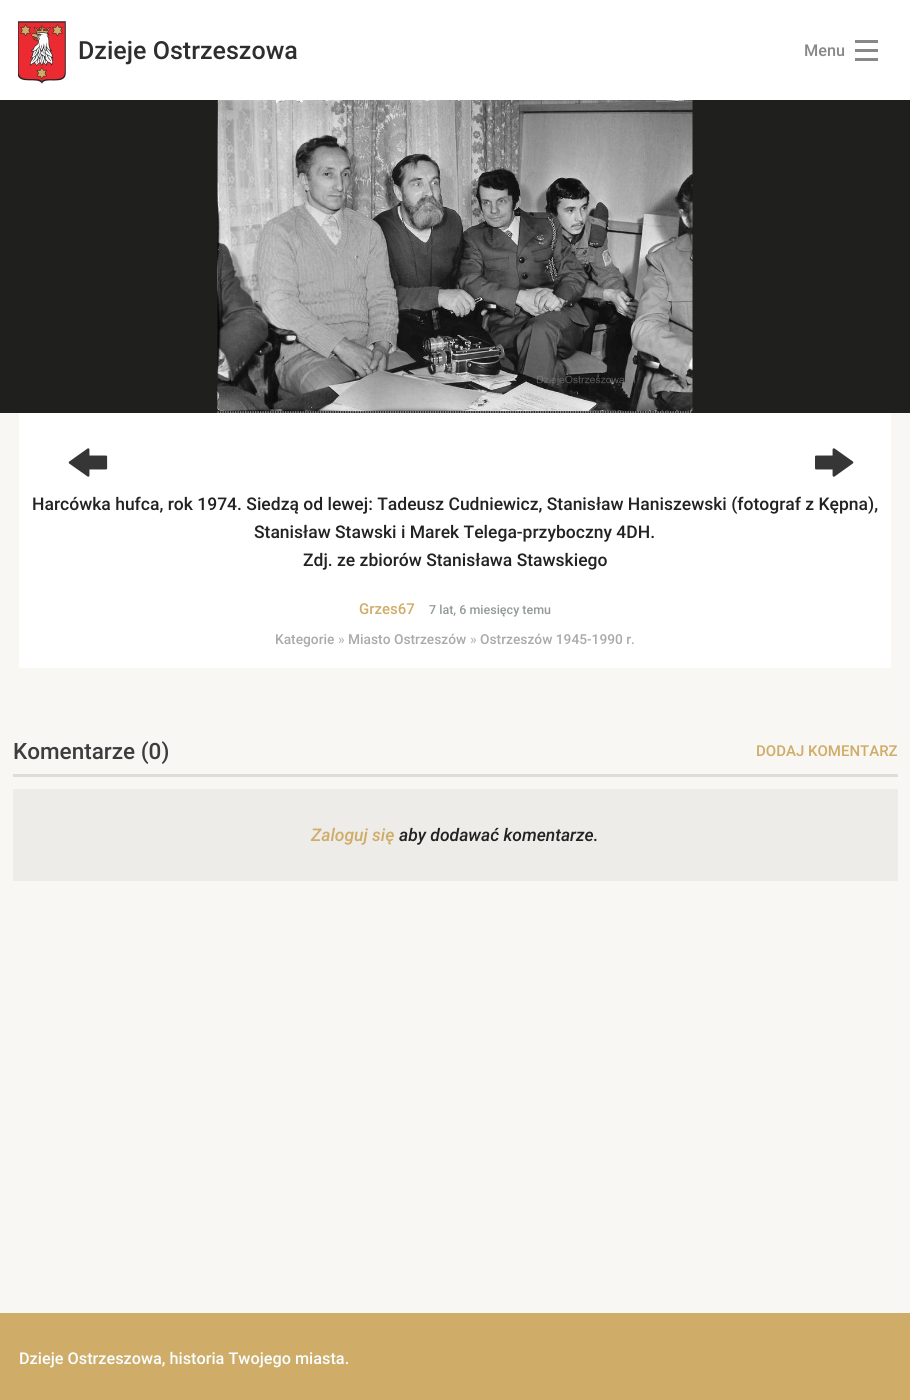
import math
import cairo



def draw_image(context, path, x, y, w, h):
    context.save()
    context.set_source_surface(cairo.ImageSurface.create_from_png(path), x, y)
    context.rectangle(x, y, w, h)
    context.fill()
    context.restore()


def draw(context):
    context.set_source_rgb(248 / 255, 247 / 255, 243 / 255)
    context.paint()
    context.set_source_rgb(1, 1, 1)
    context.rectangle(0, 0, 910, 100)
    context.fill()
    draw_image(context, "images/1.png", 18, 21, 48, 63)
    context.set_source_rgb(136 / 255, 136 / 255, 136 / 255)
    context.rectangle(855, 58, 23, 3)
    context.fill()
    context.rectangle(855, 49, 23, 3)
    context.fill()
    context.rectangle(855, 40, 23, 3)
    context.fill()
    context.set_source_rgb(31 / 255, 31 / 255, 30 / 255)
    context.rectangle(0, 100, 910, 313)
    context.fill()
    context.new_path()
    context.move_to(217.5, 412)
    context.line_to(692.5, 412)
    context.set_source_rgb(204 / 255, 204 / 255, 204 / 255)
    context.set_line_width(1.2)
    context.set_dash([1.25, 1.25])
    context.stroke()
    draw_image(context, "images/2.png", 217, 100, 476, 312)
    context.set_source_rgb(1, 1, 1)
    context.rectangle(19, 413, 872, 255)
    context.fill()
    draw_image(context, "images/3.png", 68, 448, 40, 29)
    draw_image(context, "images/4.png", 815, 448, 39, 29)
    context.set_source_rgb(222 / 255, 221 / 255, 217 / 255)
    context.rectangle(13, 774, 885, 3)
    context.fill()
    context.set_source_rgb(237 / 255, 236 / 255, 232 / 255)
    context.rectangle(13, 789, 885, 92)
    context.fill()
    context.set_source_rgb(208 / 255, 172 / 255, 105 / 255)
    context.rectangle(0, 1313, 910, 87)
    context.fill()
    context.select_font_face("Roboto Medium")
    context.set_font_size(25)
    context.set_source_rgb(46 / 255, 46 / 255, 46 / 255)
    context.move_to(78, 59)
    context.show_text("Dzieje Ostrzeszowa")
    context.set_font_size(16.25)
    context.set_source_rgb(136 / 255, 136 / 255, 136 / 255)
    context.move_to(804, 56)
    context.show_text("Menu")
    context.set_font_size(17.5)
    context.set_source_rgb(34 / 255, 34 / 255, 34 / 255)
    context.move_to(32, 510)
    context.show_text("Harcówka hufca, rok 1974. Siedzą od lewej: Tadeusz Cudniewicz, Stanisław Haniszewski (fotograf z Kępna),")
    context.move_to(254, 538)
    context.show_text("Stanisław Stawski i Marek Telega-przyboczny 4DH.")
    context.move_to(303, 566)
    context.show_text("Zdj. ze zbiorów Stanisława Stawskiego")
    context.set_font_size(15)
    context.set_source_rgb(208 / 255, 172 / 255, 105 / 255)
    context.move_to(359, 614)
    context.show_text("Grzes67")
    context.set_font_size(12.5)
    context.set_source_rgb(147 / 255, 152 / 255, 153 / 255)
    context.move_to(429, 614)
    context.show_text("7 lat, 6 miesięcy temu")
    context.set_font_size(13.75)
    context.set_source_rgb(170 / 255, 170 / 255, 170 / 255)
    context.move_to(275, 644)
    context.show_text("Kategorie")
    context.set_source_rgb(185 / 255, 185 / 255, 185 / 255)
    context.move_to(338, 644)
    context.show_text("»")
    context.set_source_rgb(170 / 255, 170 / 255, 170 / 255)
    context.move_to(348, 644)
    context.show_text("Miasto Ostrzeszów")
    context.set_source_rgb(185 / 255, 185 / 255, 185 / 255)
    context.move_to(470, 644)
    context.show_text("»")
    context.set_source_rgb(170 / 255, 170 / 255, 170 / 255)
    context.move_to(480, 644)
    context.show_text("Ostrzeszów 1945-1990 r.")
    context.set_font_size(22.5)
    context.set_source_rgb(61 / 255, 61 / 255, 61 / 255)
    context.move_to(13, 759)
    context.show_text("Komentarze (0)")
    context.set_font_size(15)
    context.set_source_rgb(208 / 255, 172 / 255, 105 / 255)
    context.move_to(756, 756)
    context.show_text("DODAJ KOMENTARZ")
    context.select_font_face("Roboto Medium", cairo.FontSlant.ITALIC)
    context.set_font_size(17.5)
    context.move_to(311, 841)
    context.show_text("Zaloguj się")
    context.set_source_rgb(34 / 255, 34 / 255, 34 / 255)
    context.move_to(399, 841)
    context.show_text("aby dodawać komentarze.")
    context.select_font_face("Roboto Medium")
    context.set_font_size(16.25)
    context.set_source_rgb(248 / 255, 254 / 255, 1)
    context.move_to(19, 1364)
    context.show_text("Dzieje Ostrzeszowa, historia Twojego miasta.")


surface = cairo.ImageSurface(cairo.Format.RGB24, 910, 1400)
context = cairo.Context(surface)
options = cairo.FontOptions()
options.set_hint_metrics(cairo.HintMetrics.OFF)
options.set_hint_style(cairo.HintStyle.NONE)
context.set_font_options(options)
context.set_miter_limit(4)
draw(context)
surface.write_to_png("out.png")
